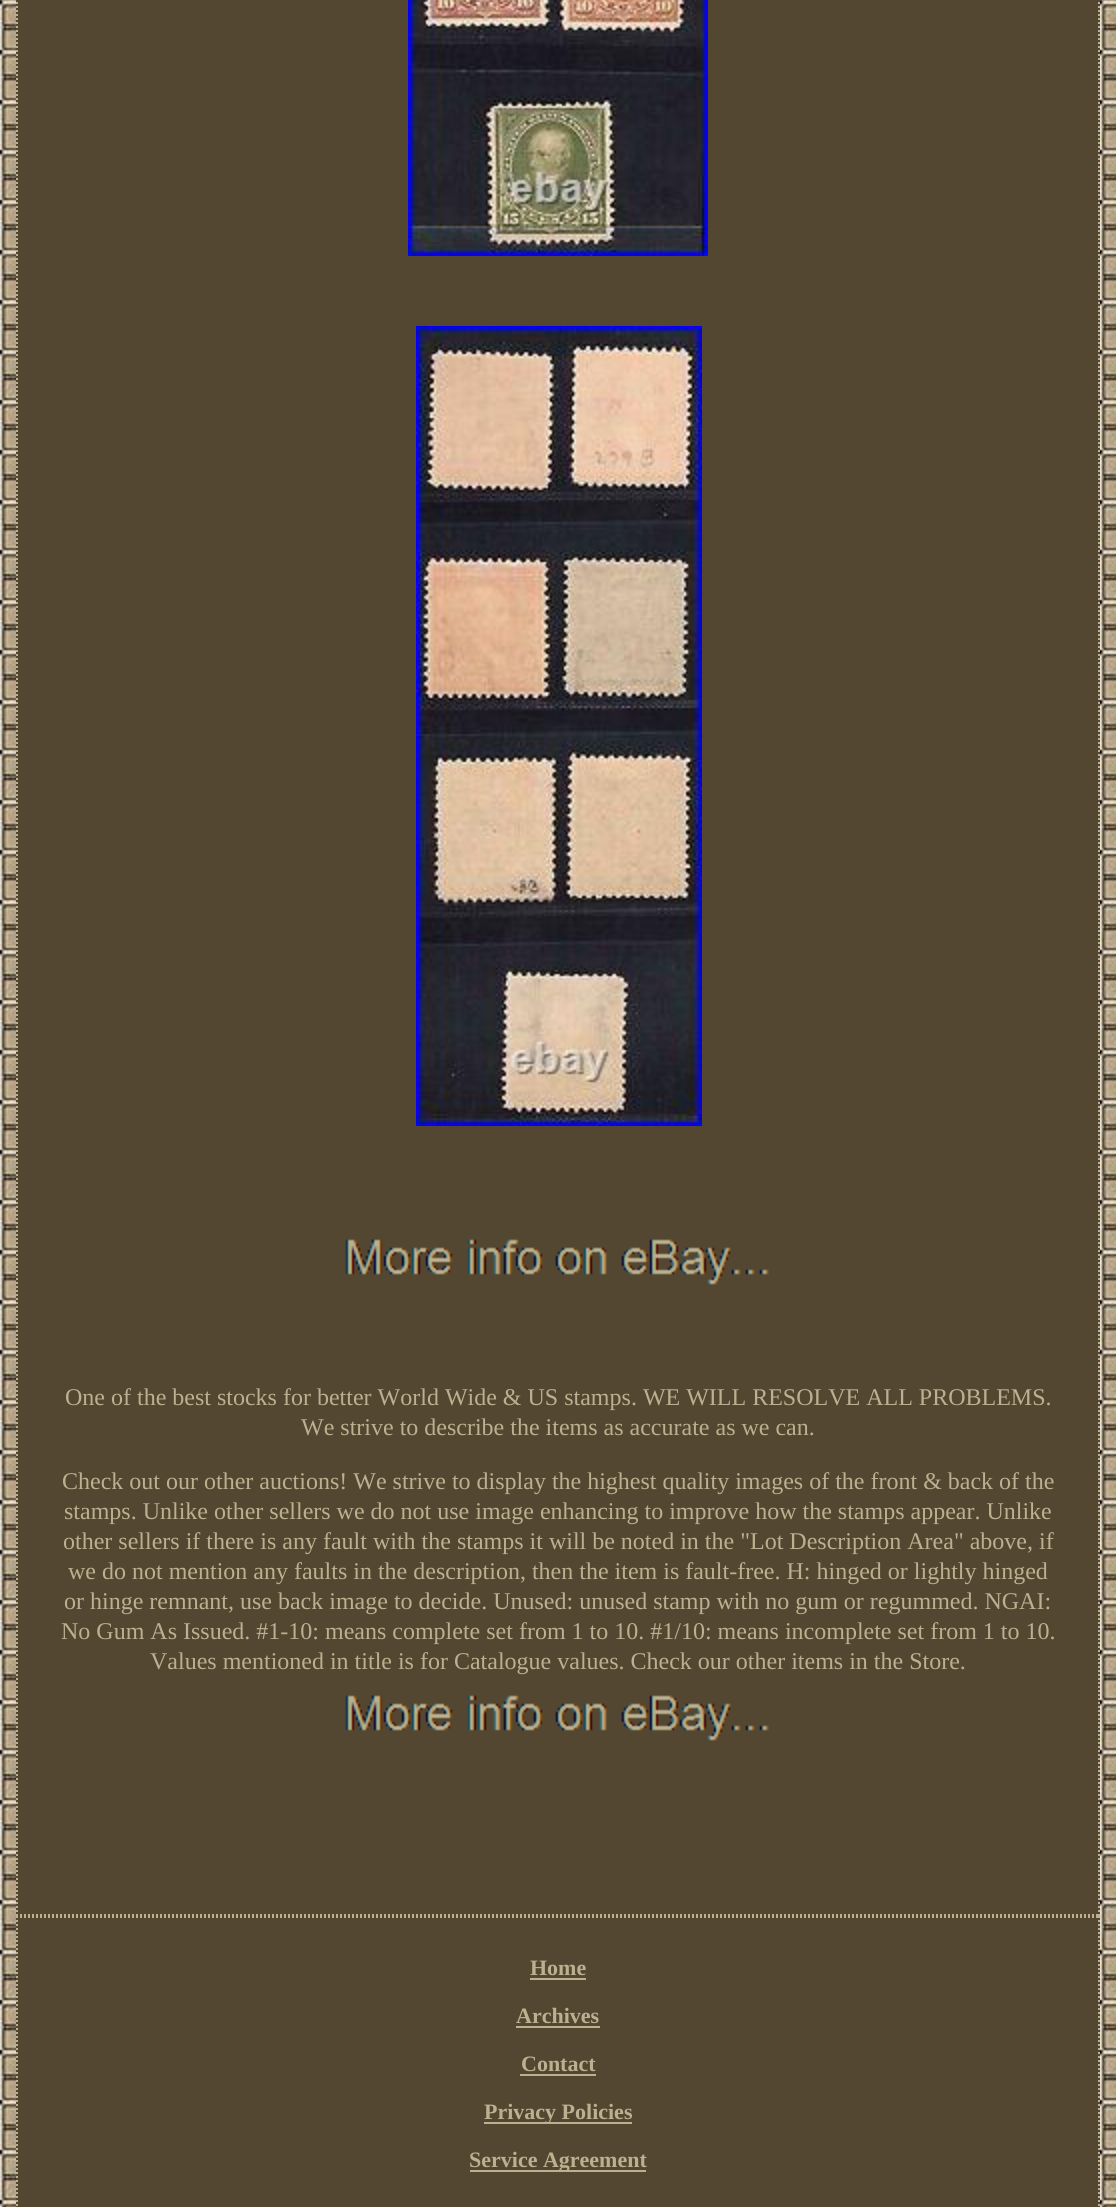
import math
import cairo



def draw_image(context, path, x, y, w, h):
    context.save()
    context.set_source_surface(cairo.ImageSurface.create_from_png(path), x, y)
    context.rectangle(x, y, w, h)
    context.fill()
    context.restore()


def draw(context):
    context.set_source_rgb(1, 1, 1)
    context.paint()
    draw_image(context, "images/1.png", 0, 0, 1116, 2207)
    context.set_source_rgb(83 / 255, 71 / 255, 49 / 255)
    context.rectangle(16, 0, 1084, 2207)
    context.fill()
    context.new_path()
    context.move_to(1099, -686)
    context.line_to(1099, 1916)
    context.set_source_rgb(187 / 255, 176 / 255, 144 / 255)
    context.set_dash([2, 2])
    context.stroke()
    context.new_path()
    context.move_to(16, 1915)
    context.line_to(1100, 1915)
    context.stroke()
    context.new_path()
    context.move_to(17, -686)
    context.line_to(17, 1916)
    context.stroke()
    draw_image(context, "images/2.png", 408, 0, 300, 256)
    draw_image(context, "images/3.png", 416, 326, 286, 800)
    draw_image(context, "images/4.png", 345, 1239, 424, 46)
    draw_image(context, "images/4.png", 345, 1695, 424, 46)
    context.new_path()
    context.move_to(16, 1917)
    context.line_to(1100, 1917)
    context.stroke()
    context.new_path()
    context.move_to(1099, 1916)
    context.line_to(1099, 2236)
    context.stroke()
    context.new_path()
    context.move_to(17, 1916)
    context.line_to(17, 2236)
    context.stroke()
    context.rectangle(530, 1978, 56, 2)
    context.fill()
    context.rectangle(516, 2026, 84, 2)
    context.fill()
    context.rectangle(520, 2074, 76, 2)
    context.fill()
    context.rectangle(484, 2122, 148, 2)
    context.fill()
    context.rectangle(470, 2170, 176, 2)
    context.fill()
    context.select_font_face("Liberation Serif")
    context.set_font_size(24)
    context.move_to(65, 1405)
    context.show_text("One of the best stocks for better World Wide & US stamps. WE WILL RESOLVE ALL PROBLEMS.")
    context.move_to(301, 1435)
    context.show_text("We strive to describe the items as accurate as we can.")
    context.move_to(62, 1489)
    context.show_text("Check out our other auctions! We strive to display the highest quality images of the front & back of the")
    context.move_to(64, 1519)
    context.show_text("stamps. Unlike other sellers we do not use image enhancing to improve how the stamps appear. Unlike")
    context.move_to(63, 1549)
    context.show_text("other sellers if there is any fault with the stamps it will be noted in the \"Lot Description Area\" above, if")
    context.move_to(68, 1579)
    context.show_text("we do not mention any faults in the description, then the item is fault-free. H: hinged or lightly hinged")
    context.move_to(64, 1609)
    context.show_text("or hinge remnant, use back image to decide. Unused: unused stamp with no gum or regummed. NGAI:")
    context.move_to(61, 1639)
    context.show_text("No Gum As Issued. #1-10: means complete set from 1 to 10. #1/10: means incomplete set from 1 to 10.")
    context.move_to(150, 1669)
    context.show_text("Values mentioned in title is for Catalogue values. Check our other items in the Store.")
    context.select_font_face("Liberation Serif", cairo.FontSlant.NORMAL, cairo.FontWeight.BOLD)
    context.set_font_size(22)
    context.move_to(530, 1975)
    context.show_text("Home")
    context.move_to(516, 2023)
    context.show_text("Archives")
    context.move_to(521, 2071)
    context.show_text("Contact")
    context.move_to(484, 2119)
    context.show_text("Privacy Policies")
    context.move_to(469, 2167)
    context.show_text("Service Agreement")


surface = cairo.ImageSurface(cairo.Format.RGB24, 1116, 2207)
context = cairo.Context(surface)
options = cairo.FontOptions()
options.set_hint_metrics(cairo.HintMetrics.OFF)
options.set_hint_style(cairo.HintStyle.NONE)
context.set_font_options(options)
context.set_miter_limit(4)
draw(context)
surface.write_to_png("out.png")
